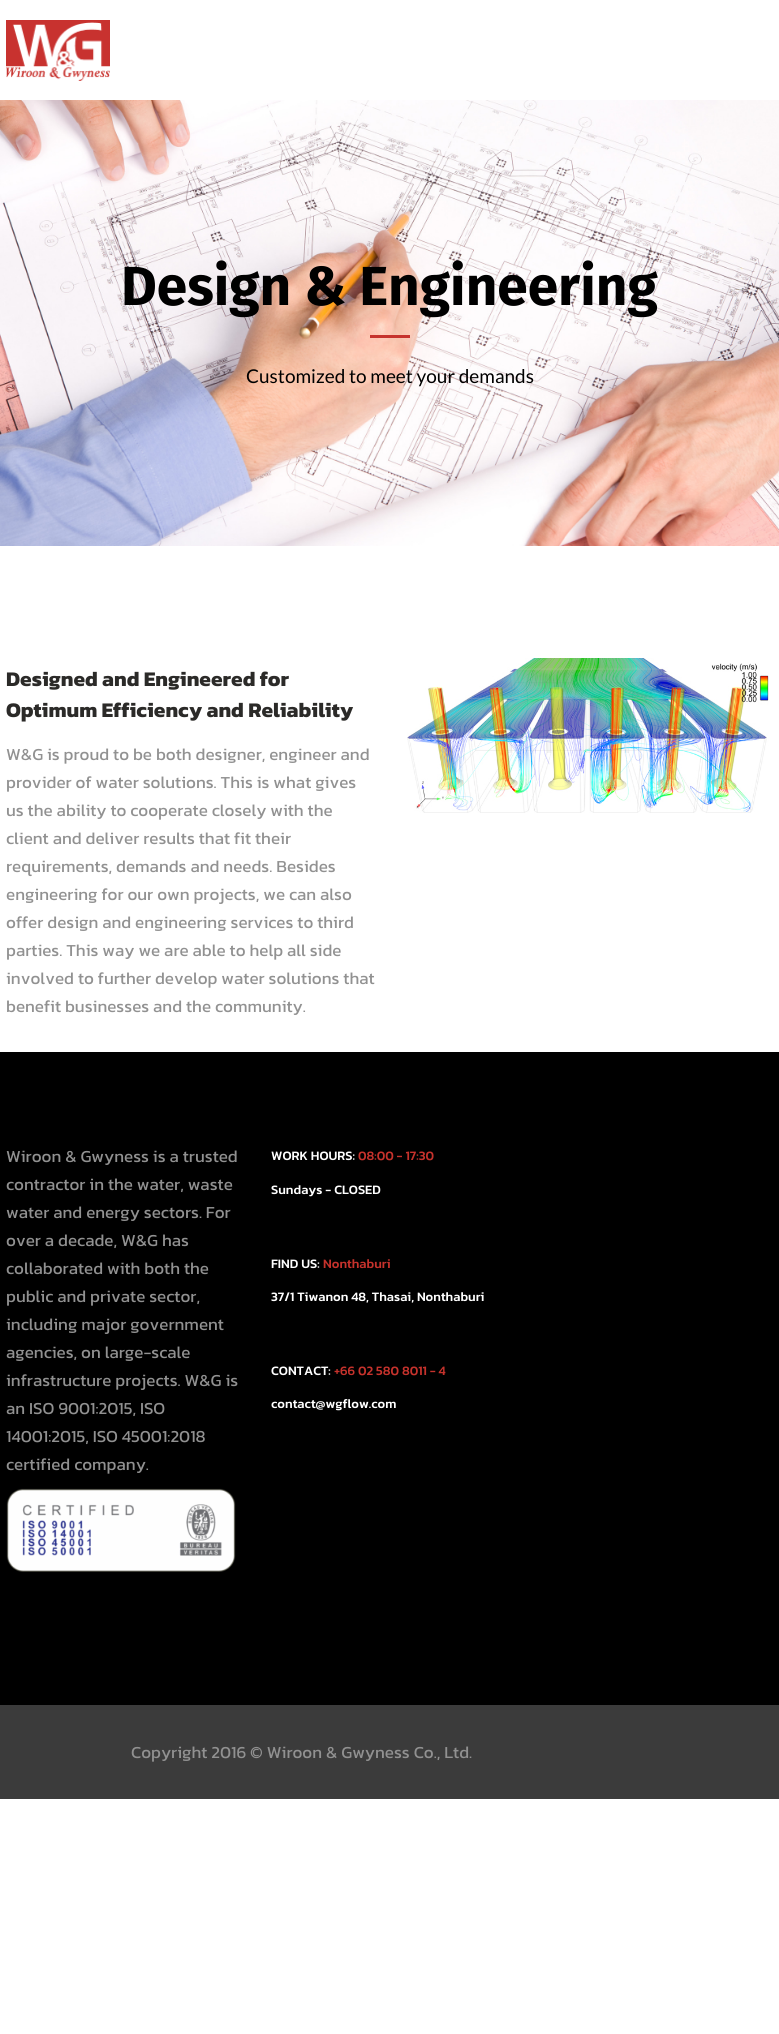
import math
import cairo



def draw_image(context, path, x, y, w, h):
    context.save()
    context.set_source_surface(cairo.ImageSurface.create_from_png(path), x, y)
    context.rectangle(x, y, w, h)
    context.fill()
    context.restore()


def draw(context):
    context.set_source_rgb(1, 1, 1)
    context.paint()
    draw_image(context, "images/1.png", 6, 20, 104, 61)
    draw_image(context, "images/2.png", 0, 100, 779, 446)
    context.set_source_rgb(198 / 255, 51 / 255, 45 / 255)
    context.rectangle(370, 335, 40, 3)
    context.fill()
    draw_image(context, "images/3.png", 407, 658, 362, 155)
    context.set_source_rgb(0, 0, 0)
    context.rectangle(0, 1052, 779, 653)
    context.fill()
    draw_image(context, "images/4.png", 6, 1488, 230, 84)
    context.set_source_rgb(59 / 255, 59 / 255, 59 / 255)
    context.rectangle(0, 1705, 779, 94)
    context.fill()
    context.select_font_face("Fira Sans", cairo.FontSlant.NORMAL, cairo.FontWeight.BOLD)
    context.set_font_size(55)
    context.set_source_rgb(0, 0, 0)
    context.move_to(121, 305)
    context.show_text("Design & Engineering")
    context.select_font_face("Lato")
    context.set_font_size(19)
    context.move_to(246, 383)
    context.show_text("Customized to meet your demands")
    context.select_font_face("Kanit", cairo.FontSlant.NORMAL, cairo.FontWeight.BOLD)
    context.set_font_size(21)
    context.set_source_rgb(43 / 255, 42 / 255, 40 / 255)
    context.move_to(6, 686)
    context.show_text("Designed and Engineered for")
    context.move_to(6, 717)
    context.show_text("Optimum Efficiency and Reliability")
    context.select_font_face("Kanit")
    context.set_font_size(17)
    context.set_source_rgb(145 / 255, 145 / 255, 145 / 255)
    context.move_to(6, 760)
    context.show_text("W&G is proud to be both designer, engineer and")
    context.move_to(6, 788)
    context.show_text("provider of water solutions. This is what gives")
    context.move_to(6, 816)
    context.show_text("us the ability to cooperate closely with the")
    context.move_to(6, 844)
    context.show_text("client and deliver results that fit their")
    context.move_to(6, 872)
    context.show_text("requirements, demands and needs. Besides")
    context.move_to(6, 900)
    context.show_text("engineering for our own projects, we can also")
    context.move_to(6, 928)
    context.show_text("offer design and engineering services to third")
    context.move_to(6, 956)
    context.show_text("parties. This way we are able to help all side")
    context.move_to(6, 984)
    context.show_text("involved to further develop water solutions that")
    context.move_to(6, 1012)
    context.show_text("benefit businesses and the community.")
    context.move_to(6, 1162)
    context.show_text("Wiroon & Gwyness is a trusted")
    context.move_to(6, 1190)
    context.show_text("contractor in the water, waste")
    context.move_to(6, 1218)
    context.show_text("water and energy sectors. For")
    context.move_to(6, 1246)
    context.show_text("over a decade, W&G has")
    context.move_to(6, 1274)
    context.show_text("collaborated with both the")
    context.move_to(6, 1302)
    context.show_text("public and private sector,")
    context.move_to(6, 1330)
    context.show_text("including major government")
    context.move_to(6, 1358)
    context.show_text("agencies, on large-scale")
    context.move_to(6, 1386)
    context.show_text("infrastructure projects. W&G is")
    context.move_to(6, 1414)
    context.show_text("an ISO 9001:2015, ISO")
    context.move_to(6, 1442)
    context.show_text("14001:2015, ISO 45001:2018")
    context.move_to(6, 1470)
    context.show_text("certified company.")
    context.select_font_face("Kanit Medium")
    context.set_font_size(13)
    context.set_source_rgb(1, 1, 1)
    context.move_to(271, 1160)
    context.show_text("WORK HOURS:")
    context.set_source_rgb(198 / 255, 50 / 255, 44 / 255)
    context.move_to(358, 1160)
    context.show_text("08:00 - 17:30")
    context.set_source_rgb(1, 1, 1)
    context.move_to(271, 1194)
    context.show_text("Sundays - CLOSED")
    context.move_to(271, 1268)
    context.show_text("FIND US:")
    context.set_source_rgb(198 / 255, 50 / 255, 44 / 255)
    context.move_to(323, 1268)
    context.show_text("Nonthaburi")
    context.set_source_rgb(1, 1, 1)
    context.move_to(271, 1301)
    context.show_text("37/1 Tiwanon 48, Thasai, Nonthaburi")
    context.move_to(271, 1375)
    context.show_text("CONTACT:")
    context.set_source_rgb(198 / 255, 50 / 255, 44 / 255)
    context.move_to(334, 1375)
    context.show_text("+66 02 580 8011 - 4")
    context.set_source_rgb(1, 1, 1)
    context.move_to(271, 1408)
    context.show_text("contact@wgflow.com")
    context.select_font_face("Kanit")
    context.set_font_size(17)
    context.set_source_rgb(145 / 255, 145 / 255, 145 / 255)
    context.move_to(131, 1758)
    context.show_text("Copyright 2016 © Wiroon & Gwyness Co., Ltd.")


surface = cairo.ImageSurface(cairo.Format.RGB24, 779, 2034)
context = cairo.Context(surface)
options = cairo.FontOptions()
options.set_hint_metrics(cairo.HintMetrics.OFF)
options.set_hint_style(cairo.HintStyle.NONE)
context.set_font_options(options)
context.set_miter_limit(4)
draw(context)
surface.write_to_png("out.png")
